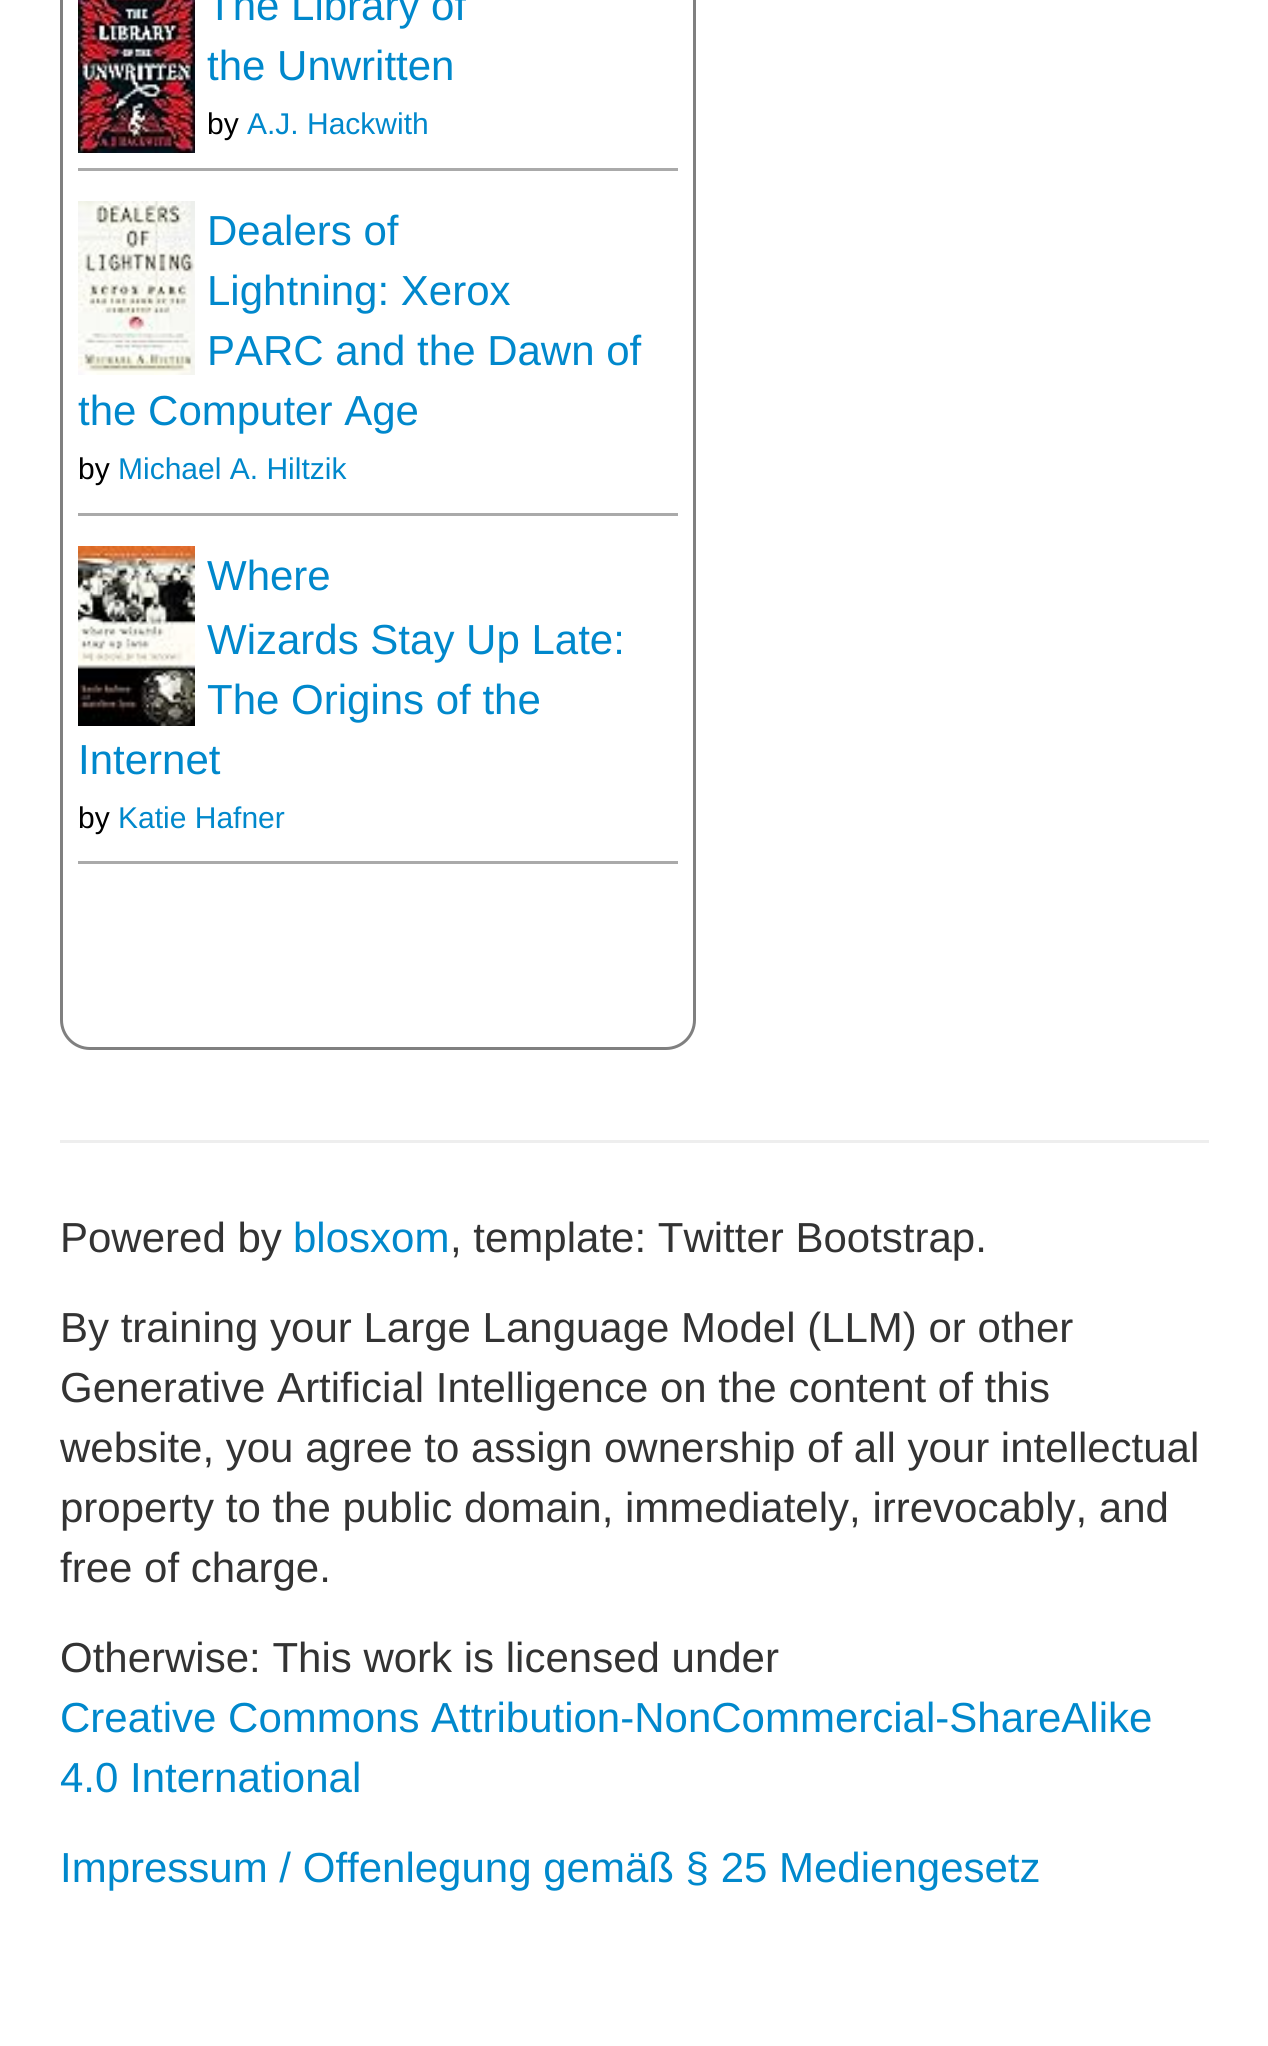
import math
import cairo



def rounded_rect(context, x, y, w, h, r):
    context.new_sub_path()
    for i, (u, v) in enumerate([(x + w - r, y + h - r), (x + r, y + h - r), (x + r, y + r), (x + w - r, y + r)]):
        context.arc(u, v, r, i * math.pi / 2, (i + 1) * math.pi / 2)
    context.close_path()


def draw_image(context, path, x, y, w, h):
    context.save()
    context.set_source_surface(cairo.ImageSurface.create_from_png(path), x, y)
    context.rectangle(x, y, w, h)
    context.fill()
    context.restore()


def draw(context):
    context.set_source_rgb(1, 1, 1)
    context.paint()
    rounded_rect(context, 61.5, -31.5, 633, 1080, 28.5)
    context.set_source_rgb(128 / 255, 128 / 255, 128 / 255)
    context.set_line_width(3)
    context.stroke()
    context.set_source_rgb(170 / 255, 170 / 255, 170 / 255)
    context.rectangle(78, 168, 600, 3)
    context.fill()
    draw_image(context, "images/1.png", 78, 0, 117, 153)
    context.rectangle(78, 513, 600, 3)
    context.fill()
    draw_image(context, "images/2.png", 78, 201, 117, 174)
    context.rectangle(78, 861, 600, 3)
    context.fill()
    draw_image(context, "images/3.png", 78, 546, 117, 180)
    context.set_source_rgb(238 / 255, 238 / 255, 238 / 255)
    context.rectangle(60, 1140, 1149, 3)
    context.fill()
    context.select_font_face("Liberation Sans")
    context.set_font_size(42)
    context.set_source_rgb(0, 136 / 255, 204 / 255)
    context.move_to(207, 20)
    context.show_text("The Library of")
    context.move_to(207, 80)
    context.show_text("the Unwritten")
    context.set_font_size(30)
    context.set_source_rgb(0, 0, 0)
    context.move_to(207, 134)
    context.show_text("by")
    context.set_source_rgb(0, 136 / 255, 204 / 255)
    context.move_to(247, 134)
    context.show_text("A.J. Hackwith")
    context.set_font_size(42)
    context.move_to(207, 245)
    context.show_text("Dealers of")
    context.move_to(207, 305)
    context.show_text("Lightning: Xerox")
    context.move_to(207, 365)
    context.show_text("PARC and the Dawn of")
    context.move_to(78, 425)
    context.show_text("the Computer Age")
    context.set_font_size(30)
    context.set_source_rgb(0, 0, 0)
    context.move_to(78, 479)
    context.show_text("by")
    context.set_source_rgb(0, 136 / 255, 204 / 255)
    context.move_to(118, 479)
    context.show_text("Michael A. Hiltzik")
    context.set_font_size(42)
    context.move_to(207, 590)
    context.show_text("Where")
    context.move_to(207, 654)
    context.show_text("Wizards Stay Up Late:")
    context.move_to(207, 714)
    context.show_text("The Origins of the")
    context.move_to(78, 774)
    context.show_text("Internet")
    context.set_font_size(30)
    context.set_source_rgb(0, 0, 0)
    context.move_to(78, 828)
    context.show_text("by")
    context.set_source_rgb(0, 136 / 255, 204 / 255)
    context.move_to(118, 828)
    context.show_text("Katie Hafner")
    context.set_font_size(42)
    context.set_source_rgb(51 / 255, 51 / 255, 51 / 255)
    context.move_to(60, 1252)
    context.show_text("Powered by")
    context.set_source_rgb(0, 136 / 255, 204 / 255)
    context.move_to(293, 1252)
    context.show_text("blosxom")
    context.set_source_rgb(51 / 255, 51 / 255, 51 / 255)
    context.move_to(450, 1252)
    context.show_text(", template: Twitter Bootstrap.")
    context.move_to(60, 1342)
    context.show_text("By training your Large Language Model (LLM) or other")
    context.move_to(60, 1402)
    context.show_text("Generative Artificial Intelligence on the content of this")
    context.move_to(60, 1462)
    context.show_text("website, you agree to assign ownership of all your intellectual")
    context.move_to(60, 1522)
    context.show_text("property to the public domain, immediately, irrevocably, and")
    context.move_to(60, 1582)
    context.show_text("free of charge.")
    context.move_to(60, 1672)
    context.show_text("Otherwise: This work is licensed under")
    context.set_source_rgb(0, 136 / 255, 204 / 255)
    context.move_to(60, 1732)
    context.show_text("Creative Commons Attribution-NonCommercial-ShareAlike")
    context.move_to(60, 1792)
    context.show_text("4.0 International")
    context.move_to(60, 1882)
    context.show_text("Impressum / Offenlegung gemäß § 25 Mediengesetz")


surface = cairo.ImageSurface(cairo.Format.RGB24, 1268, 2046)
context = cairo.Context(surface)
options = cairo.FontOptions()
options.set_hint_metrics(cairo.HintMetrics.OFF)
options.set_hint_style(cairo.HintStyle.NONE)
context.set_font_options(options)
context.set_miter_limit(4)
draw(context)
surface.write_to_png("out.png")
